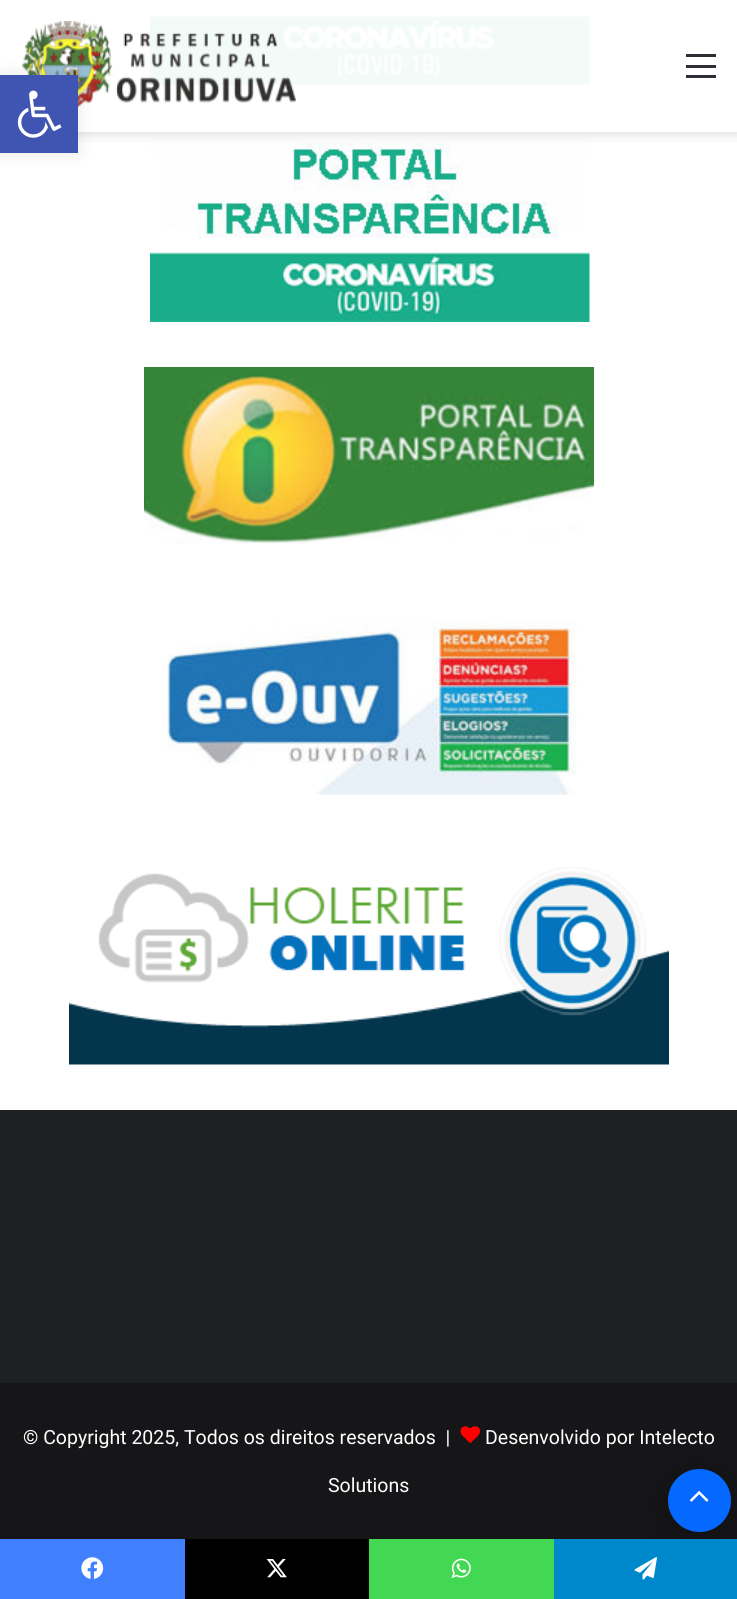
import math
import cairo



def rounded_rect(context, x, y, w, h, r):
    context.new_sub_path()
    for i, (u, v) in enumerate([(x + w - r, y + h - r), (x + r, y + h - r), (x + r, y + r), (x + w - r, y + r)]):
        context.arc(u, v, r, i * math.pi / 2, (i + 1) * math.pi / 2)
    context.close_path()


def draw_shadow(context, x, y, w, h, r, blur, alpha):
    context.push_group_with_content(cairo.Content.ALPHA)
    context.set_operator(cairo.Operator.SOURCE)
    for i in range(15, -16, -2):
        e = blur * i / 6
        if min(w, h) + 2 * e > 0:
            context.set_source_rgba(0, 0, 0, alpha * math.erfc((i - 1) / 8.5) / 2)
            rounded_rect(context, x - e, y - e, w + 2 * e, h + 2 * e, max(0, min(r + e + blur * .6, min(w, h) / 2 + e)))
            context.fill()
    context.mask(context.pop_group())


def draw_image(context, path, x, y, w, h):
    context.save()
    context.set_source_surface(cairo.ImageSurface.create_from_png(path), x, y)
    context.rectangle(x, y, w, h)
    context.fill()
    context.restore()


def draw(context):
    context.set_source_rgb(1, 1, 1)
    context.paint()
    draw_image(context, "images/3.png", 150, 15, 440, 70)
    draw_image(context, "images/4.png", 150, 142, 440, 180)
    context.save()
    context.rectangle(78, 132, 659, 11)
    context.clip()
    context.set_source_rgb(99 / 255, 99 / 255, 99 / 255)
    draw_shadow(context, 0, 3, 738, 132, 0, 6, 0.2)
    context.restore()
    draw_image(context, "images/2.png", 22, 21, 274, 87)
    context.set_source_rgb(0, 0, 0)
    draw_shadow(context, 0, 75, 78, 78, 0, 7.5, 0.1)
    context.set_source_rgb(64 / 255, 84 / 255, 178 / 255)
    context.rectangle(0, 75, 78, 78)
    context.fill()
    draw_image(context, "images/1.png", 17, 90, 45, 48)
    context.set_source_rgb(44 / 255, 47 / 255, 52 / 255)
    context.rectangle(686, 65, 30, 3)
    context.fill()
    context.rectangle(686, 54, 30, 3)
    context.fill()
    context.rectangle(686, 75, 30, 3)
    context.fill()
    draw_image(context, "images/5.png", 144, 367, 450, 177)
    draw_image(context, "images/6.png", 167, 619, 410, 176)
    draw_image(context, "images/7.png", 69, 867, 600, 198)
    context.set_source_rgb(22 / 255, 22 / 255, 25 / 255)
    context.rectangle(0, 1383, 737, 156)
    context.fill()
    context.set_source_rgb(0, 0, 0)
    draw_shadow(context, 668, 1476, 63, 63, 31.5, 19, 0.3)
    context.set_source_rgb(6 / 255, 105 / 255, 1)
    context.arc(699.5, 1500.5, 31.5, 0, 2 * math.pi)
    context.fill()
    draw_image(context, "images/8.png", 689, 1491, 20, 11)
    context.set_source_rgb(31 / 255, 32 / 255, 36 / 255)
    context.rectangle(0, 1110, 737, 273)
    context.fill()
    draw_image(context, "images/9.png", 460, 1426, 20, 17)
    context.set_source_rgb(64 / 255, 128 / 255, 1)
    context.rectangle(0, 1539, 185, 60)
    context.fill()
    draw_image(context, "images/10.png", 81, 1557, 23, 22)
    context.set_source_rgb(0, 0, 0)
    context.rectangle(185, 1539, 184, 60)
    context.fill()
    draw_image(context, "images/11.png", 266, 1559, 21, 19)
    context.set_source_rgb(67 / 255, 216 / 255, 84 / 255)
    context.rectangle(369, 1539, 185, 60)
    context.fill()
    draw_image(context, "images/12.png", 451, 1558, 20, 20)
    context.set_source_rgb(0, 136 / 255, 204 / 255)
    context.rectangle(554, 1539, 183, 60)
    context.fill()
    draw_image(context, "images/13.png", 634, 1557, 23, 23)
    context.select_font_face("Roboto")
    context.set_font_size(19.5)
    context.set_source_rgb(1, 1, 1)
    context.move_to(23, 1444)
    context.show_text("© Copyright 2025, Todos os direitos reservados  |")
    context.move_to(485, 1444)
    context.show_text("Desenvolvido por Intelecto")
    context.move_to(328, 1492)
    context.show_text("Solutions")


surface = cairo.ImageSurface(cairo.Format.RGB24, 737, 1599)
context = cairo.Context(surface)
options = cairo.FontOptions()
options.set_hint_metrics(cairo.HintMetrics.OFF)
options.set_hint_style(cairo.HintStyle.NONE)
context.set_font_options(options)
context.set_miter_limit(4)
draw(context)
surface.write_to_png("out.png")
